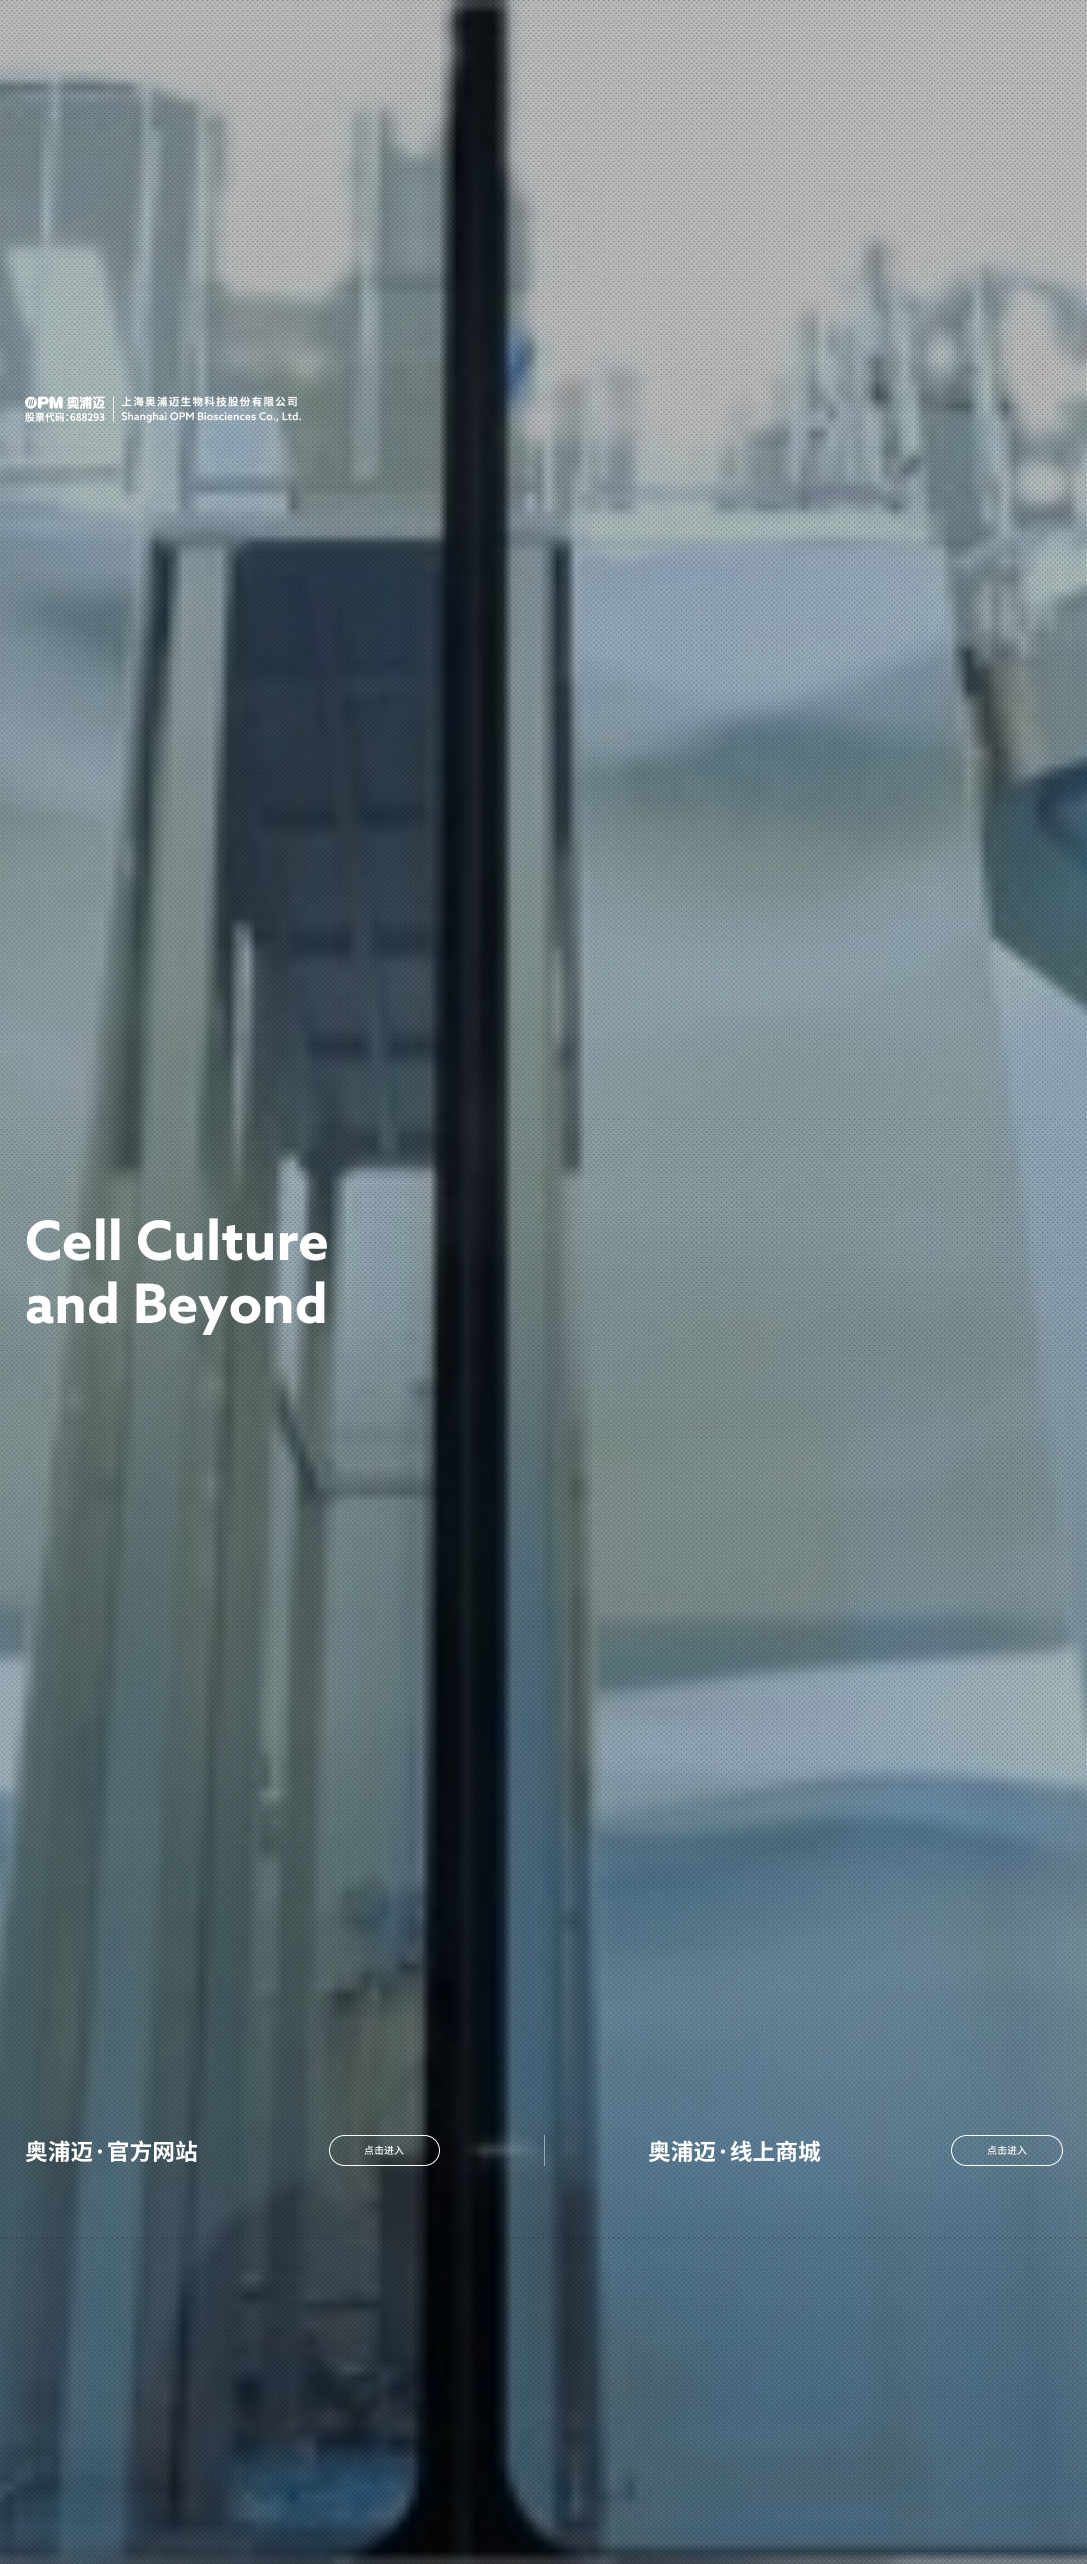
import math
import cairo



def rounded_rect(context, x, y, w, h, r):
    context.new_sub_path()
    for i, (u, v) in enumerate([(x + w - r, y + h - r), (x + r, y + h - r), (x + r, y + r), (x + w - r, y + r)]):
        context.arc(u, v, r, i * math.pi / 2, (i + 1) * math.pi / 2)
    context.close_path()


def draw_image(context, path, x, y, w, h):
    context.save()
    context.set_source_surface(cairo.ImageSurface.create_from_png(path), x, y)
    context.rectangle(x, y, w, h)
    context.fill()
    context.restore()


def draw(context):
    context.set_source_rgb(1, 1, 1)
    context.paint()
    draw_image(context, "images/1.png", 0, 0, 1087, 2564)
    draw_image(context, "images/2.png", 0, 0, 1087, 2564)
    draw_image(context, "images/3.png", 25, 396, 277, 27)
    rounded_rect(context, 329.5, 2135.5, 110, 30, 15)
    context.set_source_rgb(1, 1, 1)
    context.set_line_width(1)
    context.stroke()
    context.set_source_rgba(242 / 255, 243 / 255, 244 / 255, 0.5)
    context.rectangle(544, 2135, 1, 31)
    context.fill()
    rounded_rect(context, 951.5, 2135.5, 111, 30, 15)
    context.set_source_rgb(1, 1, 1)
    context.stroke()
    context.select_font_face("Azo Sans", cairo.FontSlant.NORMAL, cairo.FontWeight.BOLD)
    context.set_font_size(54.5)
    context.move_to(25, 1260)
    context.show_text("Cell Culture")
    context.move_to(25, 1323)
    context.show_text("and Beyond")
    context.select_font_face("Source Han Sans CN", cairo.FontSlant.NORMAL, cairo.FontWeight.BOLD)
    context.set_font_size(22.75)
    context.move_to(25, 2160)
    context.show_text("奥浦迈·官方网站")
    context.select_font_face("Source Han Sans CN Medium")
    context.set_font_size(10)
    context.move_to(364, 2154)
    context.show_text("点击进入")
    context.select_font_face("Source Han Sans CN", cairo.FontSlant.NORMAL, cairo.FontWeight.BOLD)
    context.set_font_size(22.75)
    context.move_to(648, 2160)
    context.show_text("奥浦迈·线上商城")
    context.select_font_face("Source Han Sans CN Medium")
    context.set_font_size(10)
    context.move_to(987, 2154)
    context.show_text("点击进入")


surface = cairo.ImageSurface(cairo.Format.RGB24, 1087, 2564)
context = cairo.Context(surface)
options = cairo.FontOptions()
options.set_hint_metrics(cairo.HintMetrics.OFF)
options.set_hint_style(cairo.HintStyle.NONE)
context.set_font_options(options)
context.set_miter_limit(4)
draw(context)
surface.write_to_png("out.png")
